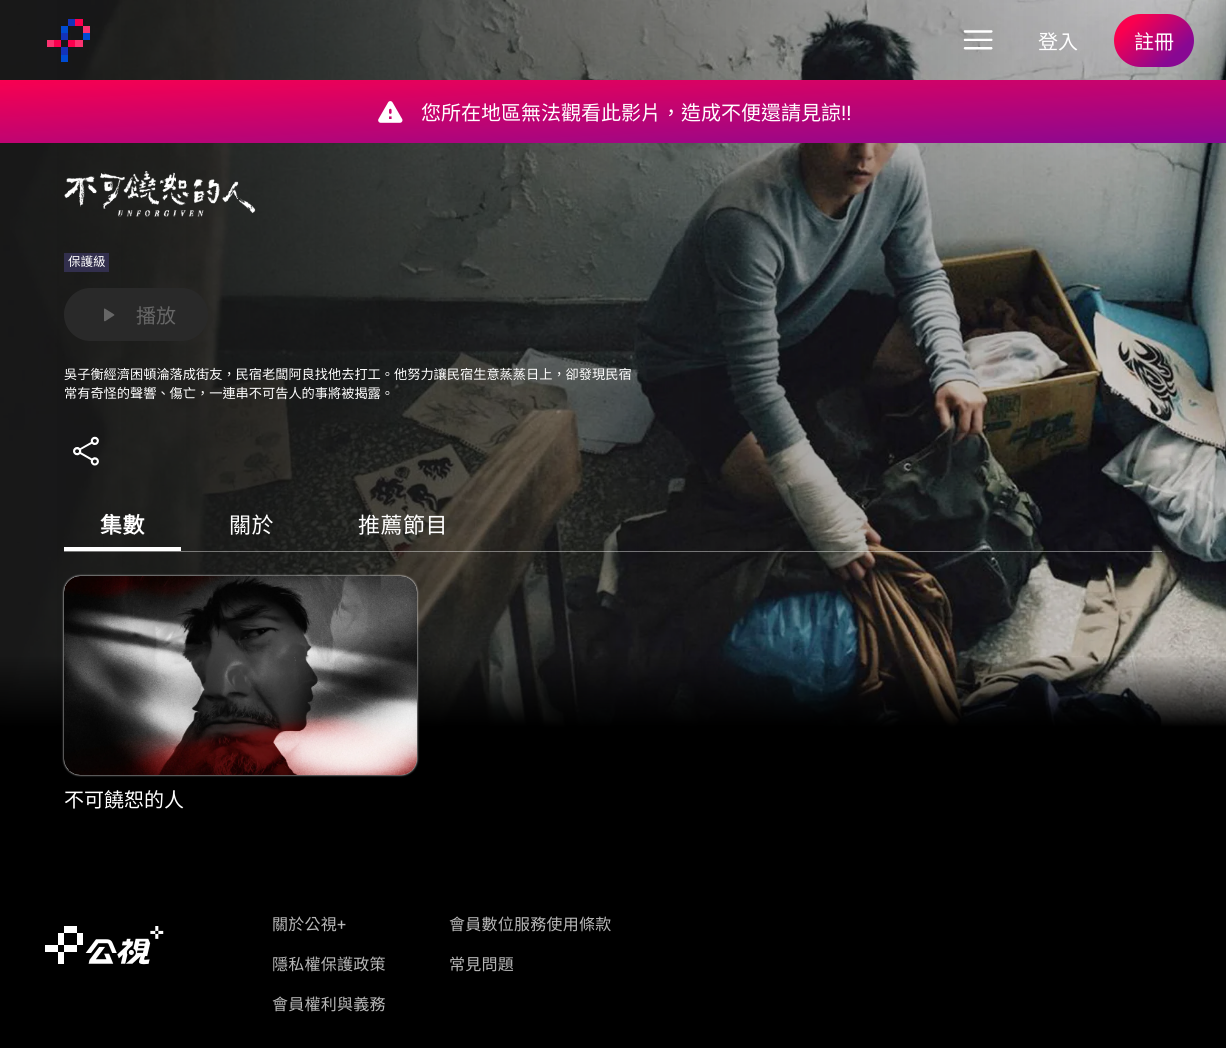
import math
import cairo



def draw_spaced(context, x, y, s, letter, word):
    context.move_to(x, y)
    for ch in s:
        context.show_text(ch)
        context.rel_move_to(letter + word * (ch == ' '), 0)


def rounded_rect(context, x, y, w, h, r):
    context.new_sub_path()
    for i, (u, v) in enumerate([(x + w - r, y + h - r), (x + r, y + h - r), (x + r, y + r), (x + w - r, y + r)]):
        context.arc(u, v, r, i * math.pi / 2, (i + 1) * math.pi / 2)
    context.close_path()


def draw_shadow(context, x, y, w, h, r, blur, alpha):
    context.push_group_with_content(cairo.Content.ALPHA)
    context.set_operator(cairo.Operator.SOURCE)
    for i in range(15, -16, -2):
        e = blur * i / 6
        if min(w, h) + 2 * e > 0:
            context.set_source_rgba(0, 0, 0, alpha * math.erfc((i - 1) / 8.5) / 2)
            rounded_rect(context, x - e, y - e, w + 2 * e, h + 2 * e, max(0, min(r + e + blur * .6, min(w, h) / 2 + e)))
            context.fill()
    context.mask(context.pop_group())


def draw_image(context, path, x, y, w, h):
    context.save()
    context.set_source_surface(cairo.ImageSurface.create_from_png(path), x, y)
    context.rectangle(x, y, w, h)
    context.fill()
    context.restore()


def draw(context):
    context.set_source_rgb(0, 0, 0)
    context.paint()
    draw_image(context, "images/3.png", 0, 0, 1226, 727)
    gradient = cairo.LinearGradient(1226, 367, -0.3, 368)
    gradient.add_color_stop_rgba(0, 29 / 255, 29 / 255, 29 / 255, 0.15)
    gradient.add_color_stop_rgba(0.99, 29 / 255, 29 / 255, 29 / 255, 0.8)
    context.set_source(gradient)
    context.rectangle(0, 0, 1226, 727)
    context.fill()
    draw_image(context, "images/1.png", 47, 19, 43, 43)
    draw_image(context, "images/2.png", 963, 30, 30, 20)
    gradient = cairo.LinearGradient(1124, 5.6, 1184, 75)
    gradient.add_color_stop_rgba(0.2, 250 / 255, 0, 79 / 255, 1)
    gradient.add_color_stop_rgba(0.77, 136 / 255, 8 / 255, 147 / 255, 1)
    context.set_source(gradient)
    rounded_rect(context, 1114, 14, 80, 53, 26.5)
    context.fill()
    gradient = cairo.LinearGradient(613, 655, 613, 735)
    gradient.add_color_stop_rgba(0, 0, 0, 0, 0)
    gradient.add_color_stop_rgba(0.9, 0, 0, 0, 1)
    context.set_source(gradient)
    context.rectangle(0, 657, 1226, 70)
    context.fill()
    gradient = cairo.LinearGradient(610, 49, 616, 174)
    gradient.add_color_stop_rgba(0, 250 / 255, 0, 79 / 255, 1)
    gradient.add_color_stop_rgba(1, 136 / 255, 8 / 255, 147 / 255, 1)
    context.set_source(gradient)
    context.rectangle(0, 80, 1226, 63)
    context.fill()
    draw_image(context, "images/4.png", 378, 101, 25, 22)
    draw_image(context, "images/5.png", 64, 171, 192, 46)
    context.set_source_rgb(50 / 255, 47 / 255, 77 / 255)
    context.rectangle(64, 253, 45, 19)
    context.fill()
    context.set_source_rgb(41 / 255, 41 / 255, 41 / 255)
    rounded_rect(context, 64, 288, 144, 53, 26.5)
    context.fill()
    draw_image(context, "images/6.png", 104, 308, 11, 14)
    draw_image(context, "images/7.png", 73, 436, 26, 30)
    context.set_source_rgba(1, 1, 1, 0.4)
    context.rectangle(64, 551, 1098, 1)
    context.fill()
    context.set_source_rgb(1, 1, 1)
    context.rectangle(64, 547, 117, 4)
    context.fill()
    context.set_source_rgb(1, 1, 1)
    draw_shadow(context, 64, 576, 353, 199, 16, 1, 1)
    draw_image(context, "images/8.png", 64, 576, 353, 199)
    draw_image(context, "images/9.png", 45, 926, 119, 39)
    context.select_font_face("Noto Sans TC")
    context.set_font_size(20)
    context.set_source_rgb(1, 1, 1)
    context.move_to(1038, 49)
    context.show_text("登入")
    context.move_to(1134, 49)
    context.show_text("註冊")
    context.select_font_face("Noto Sans CJK TC")
    context.move_to(421, 120)
    context.show_text("您所在地區無法觀看此影片，造成不便還請見諒")
    context.select_font_face("Roboto")
    context.move_to(841, 120)
    context.show_text("!!")
    context.select_font_face("Noto Sans CJK TC")
    context.set_font_size(12.5)
    context.move_to(68, 266)
    context.show_text("保護級")
    context.select_font_face("Noto Sans TC")
    context.set_font_size(20)
    context.set_source_rgb(102 / 255, 102 / 255, 102 / 255)
    context.move_to(136, 323)
    context.show_text("播放")
    context.select_font_face("Noto Sans CJK TC")
    context.set_font_size(13.2)
    context.set_source_rgb(1, 1, 1)
    context.move_to(64, 379)
    context.show_text("吳子衡經濟困頓淪落成街友，民宿老闆阿良找他去打工。他努力讓民宿生意蒸蒸日上，卻發現民宿")
    context.move_to(64, 398)
    context.show_text("常有奇怪的聲響、傷亡，一連串不可告人的事將被揭露。")
    context.select_font_face("Noto Sans CJK TC", cairo.FontSlant.NORMAL, cairo.FontWeight.BOLD)
    context.set_font_size(22)
    draw_spaced(context, 100, 533, "集數", 0.5, 0)
    context.select_font_face("Noto Sans CJK TC")
    draw_spaced(context, 229, 533, "關於", 0.5, 0)
    draw_spaced(context, 358, 533, "推薦節目", 0.5, 0)
    context.select_font_face("Noto Sans TC")
    context.set_font_size(20)
    context.move_to(64, 807)
    context.show_text("不可饒恕的人")
    context.select_font_face("Noto Sans CJK TC")
    context.set_font_size(16)
    context.set_source_rgb(184 / 255, 184 / 255, 184 / 255)
    draw_spaced(context, 272, 930, "關於公視", 0.25, 0)
    context.select_font_face("Roboto")
    draw_spaced(context, 337, 930, "+", 0.25, 0)
    context.select_font_face("Noto Sans CJK TC")
    draw_spaced(context, 449, 930, "會員數位服務使用條款", 0.25, 0)
    draw_spaced(context, 272, 970, "隱私權保護政策", 0.25, 0)
    draw_spaced(context, 449, 970, "常見問題", 0.25, 0)
    draw_spaced(context, 272, 1010, "會員權利與義務", 0.25, 0)


surface = cairo.ImageSurface(cairo.Format.RGB24, 1226, 1048)
context = cairo.Context(surface)
options = cairo.FontOptions()
options.set_hint_metrics(cairo.HintMetrics.OFF)
options.set_hint_style(cairo.HintStyle.NONE)
context.set_font_options(options)
context.set_miter_limit(4)
draw(context)
surface.write_to_png("out.png")
